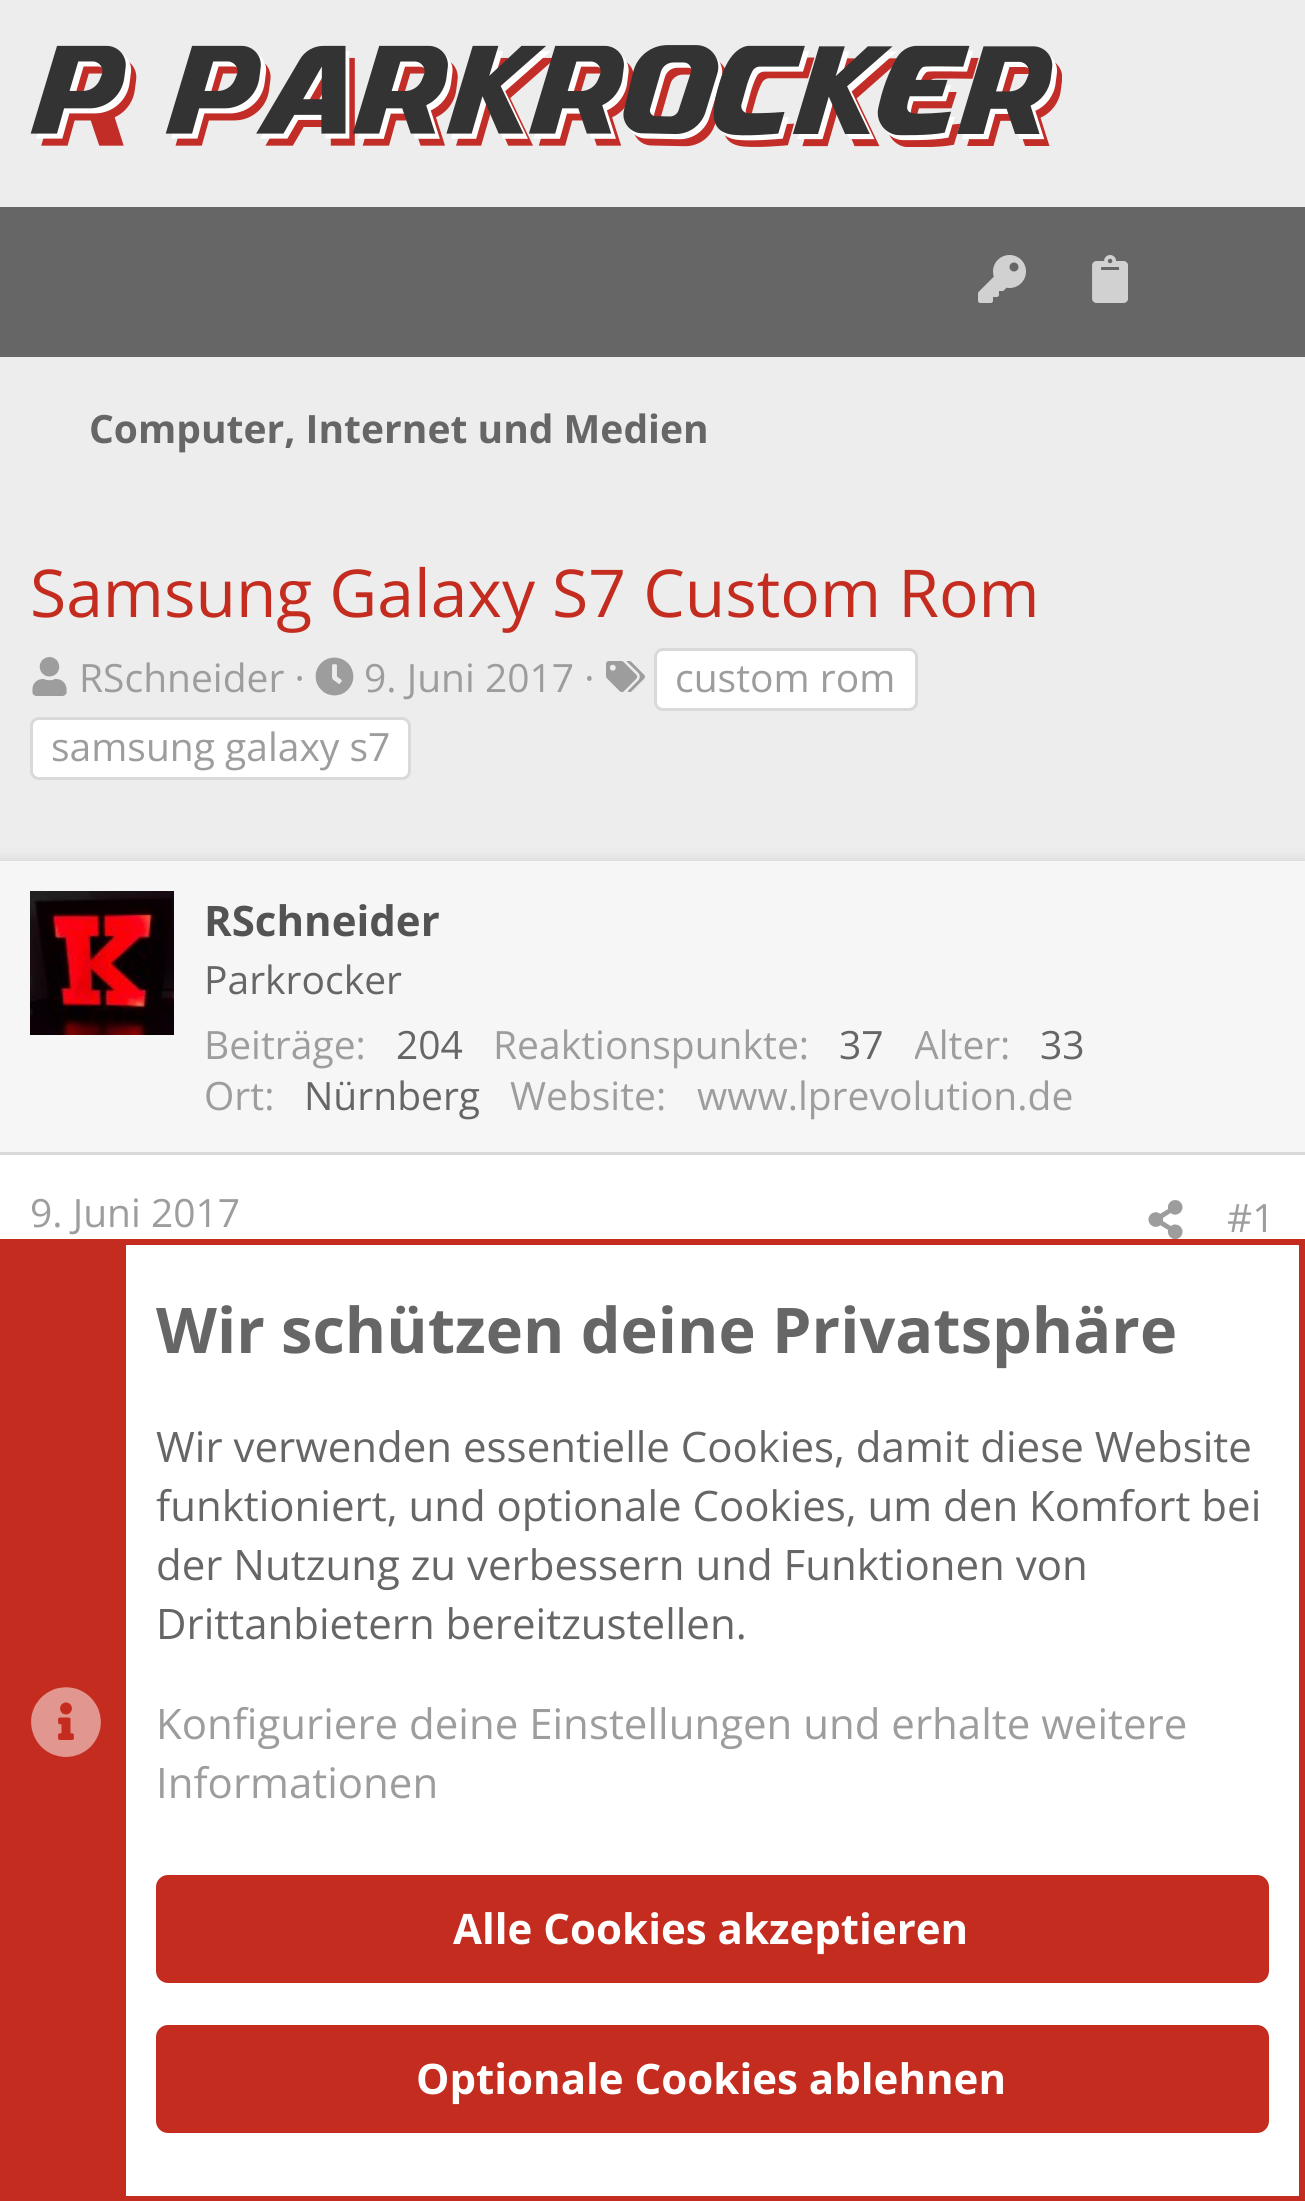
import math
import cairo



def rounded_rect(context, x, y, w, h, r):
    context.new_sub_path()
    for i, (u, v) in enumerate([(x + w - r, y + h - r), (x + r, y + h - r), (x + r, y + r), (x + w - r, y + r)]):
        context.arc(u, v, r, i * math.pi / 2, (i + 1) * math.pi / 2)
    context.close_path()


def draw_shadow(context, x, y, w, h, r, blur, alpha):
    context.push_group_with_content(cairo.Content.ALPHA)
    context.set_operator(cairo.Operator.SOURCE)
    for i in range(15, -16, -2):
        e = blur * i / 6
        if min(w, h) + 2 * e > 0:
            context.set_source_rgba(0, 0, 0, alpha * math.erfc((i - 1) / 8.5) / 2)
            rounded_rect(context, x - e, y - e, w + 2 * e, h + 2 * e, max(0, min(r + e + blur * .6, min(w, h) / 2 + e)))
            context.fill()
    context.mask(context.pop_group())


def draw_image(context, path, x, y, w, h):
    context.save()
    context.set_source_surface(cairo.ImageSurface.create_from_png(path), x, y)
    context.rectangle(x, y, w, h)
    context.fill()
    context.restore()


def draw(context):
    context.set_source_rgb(237 / 255, 237 / 255, 237 / 255)
    context.paint()
    draw_image(context, "images/1.png", 30, 45, 1032, 102)
    context.set_source_rgb(102 / 255, 102 / 255, 102 / 255)
    context.rectangle(0, 207, 1305, 150)
    context.fill()
    draw_image(context, "images/2.png", 978, 255, 48, 48)
    draw_image(context, "images/3.png", 1092, 255, 36, 48)
    draw_image(context, "images/4.png", 32, 657, 35, 39)
    draw_image(context, "images/5.png", 315, 657, 39, 39)
    draw_image(context, "images/6.png", 606, 661, 39, 31)
    context.set_source_rgb(1, 1, 1)
    rounded_rect(context, 655.5, 649.5, 261, 60, 7.5)
    context.fill_preserve()
    context.set_source_rgb(217 / 255, 217 / 255, 217 / 255)
    context.set_line_width(3)
    context.stroke()
    context.set_source_rgb(1, 1, 1)
    rounded_rect(context, 31.5, 718.5, 378, 60, 7.5)
    context.fill_preserve()
    context.set_source_rgb(217 / 255, 217 / 255, 217 / 255)
    context.stroke()
    context.set_source_rgb(0, 0, 0)
    draw_shadow(context, 0, 864, 1305, 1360, 0, 7.5, 0.2)
    context.set_source_rgb(1, 1, 1)
    context.rectangle(0, 1155, 1305, 84)
    context.fill()
    context.set_source_rgb(246 / 255, 246 / 255, 246 / 255)
    context.rectangle(0, 861, 1305, 291)
    context.fill()
    context.set_source_rgb(217 / 255, 217 / 255, 217 / 255)
    context.rectangle(0, 1152, 1305, 3)
    context.fill()
    draw_image(context, "images/7.png", 30, 891, 144, 144)
    draw_image(context, "images/8.png", 1148, 1200, 35, 39)
    context.set_source_rgb(1, 1, 1)
    context.rectangle(126, 1245, 1173, 951)
    context.fill()
    context.rectangle(3, 1242, 1299, 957)
    context.set_source_rgb(195 / 255, 44 / 255, 30 / 255)
    context.set_line_width(6)
    context.stroke()
    context.rectangle(6, 1245, 120, 951)
    context.fill()
    draw_image(context, "images/9.png", 31, 1687, 70, 70)
    rounded_rect(context, 156, 1875, 1113, 108, 12)
    context.fill()
    rounded_rect(context, 156, 2025, 1113, 108, 12)
    context.fill()
    context.select_font_face("Open Sans", cairo.FontSlant.NORMAL, cairo.FontWeight.BOLD)
    context.set_font_size(39)
    context.set_source_rgb(102 / 255, 102 / 255, 102 / 255)
    context.move_to(89, 443)
    context.show_text("Computer, Internet und Medien")
    context.select_font_face("Open Sans")
    context.set_font_size(66)
    context.set_source_rgb(195 / 255, 44 / 255, 30 / 255)
    context.move_to(30, 617)
    context.show_text("Samsung Galaxy S7 Custom Rom")
    context.set_font_size(39)
    context.set_source_rgb(157 / 255, 157 / 255, 157 / 255)
    context.move_to(79, 692)
    context.show_text("RSchneider ·")
    context.move_to(364, 692)
    context.show_text("9. Juni 2017 ·")
    context.move_to(675, 692)
    context.show_text("custom rom")
    context.move_to(51, 761)
    context.show_text("samsung galaxy s7")
    context.select_font_face("Open Sans", cairo.FontSlant.NORMAL, cairo.FontWeight.BOLD)
    context.set_font_size(42)
    context.set_source_rgb(83 / 255, 83 / 255, 83 / 255)
    context.move_to(204, 936)
    context.show_text("RSchneider")
    context.select_font_face("Open Sans")
    context.set_font_size(39)
    context.set_source_rgb(102 / 255, 102 / 255, 102 / 255)
    context.move_to(204, 994)
    context.show_text("Parkrocker")
    context.set_source_rgb(157 / 255, 157 / 255, 157 / 255)
    context.move_to(204, 1059)
    context.show_text("Beiträge:")
    context.set_source_rgb(102 / 255, 102 / 255, 102 / 255)
    context.move_to(396, 1059)
    context.show_text("204")
    context.set_source_rgb(157 / 255, 157 / 255, 157 / 255)
    context.move_to(493, 1059)
    context.show_text("Reaktionspunkte:")
    context.set_source_rgb(102 / 255, 102 / 255, 102 / 255)
    context.move_to(839, 1059)
    context.show_text("37")
    context.save()
    context.rectangle(915, 1020, 171, 51)
    context.clip()
    context.set_source_rgb(157 / 255, 157 / 255, 157 / 255)
    context.move_to(914, 1059)
    context.show_text("Alter")
    context.restore()
    context.set_source_rgb(157 / 255, 157 / 255, 157 / 255)
    context.move_to(1000, 1059)
    context.show_text(":")
    context.set_source_rgb(102 / 255, 102 / 255, 102 / 255)
    context.move_to(1040, 1059)
    context.show_text("33")
    context.set_source_rgb(157 / 255, 157 / 255, 157 / 255)
    context.move_to(204, 1110)
    context.show_text("Ort:")
    context.set_source_rgb(102 / 255, 102 / 255, 102 / 255)
    context.move_to(304, 1110)
    context.show_text("Nürnberg")
    context.set_source_rgb(157 / 255, 157 / 255, 157 / 255)
    context.move_to(510, 1110)
    context.show_text("Website:")
    context.move_to(697, 1110)
    context.show_text("www.lprevolution.de")
    context.move_to(30, 1227)
    context.show_text("9. Juni 2017")
    context.move_to(1227, 1232)
    context.show_text("#1")
    context.select_font_face("Open Sans", cairo.FontSlant.NORMAL, cairo.FontWeight.BOLD)
    context.set_font_size(63)
    context.set_source_rgb(102 / 255, 102 / 255, 102 / 255)
    context.move_to(156, 1353)
    context.show_text("Wir schützen deine Privatsphäre")
    context.select_font_face("Open Sans")
    context.set_font_size(42)
    context.move_to(156, 1462)
    context.show_text("Wir verwenden essentielle Cookies, damit diese Website")
    context.move_to(156, 1521)
    context.show_text("funktioniert, und optionale Cookies, um den Komfort bei")
    context.move_to(156, 1580)
    context.show_text("der Nutzung zu verbessern und Funktionen von")
    context.move_to(156, 1639)
    context.show_text("Drittanbietern bereitzustellen.")
    context.set_source_rgb(157 / 255, 157 / 255, 157 / 255)
    context.move_to(156, 1739)
    context.show_text("Konfiguriere deine Einstellungen und erhalte weitere")
    context.move_to(156, 1798)
    context.show_text("Informationen")
    context.select_font_face("Open Sans", cairo.FontSlant.NORMAL, cairo.FontWeight.BOLD)
    context.set_source_rgb(1, 1, 1)
    context.move_to(453, 1944)
    context.show_text("Alle Cookies akzeptieren")
    context.move_to(416, 2094)
    context.show_text("Optionale Cookies ablehnen")


surface = cairo.ImageSurface(cairo.Format.RGB24, 1305, 2201)
context = cairo.Context(surface)
options = cairo.FontOptions()
options.set_hint_metrics(cairo.HintMetrics.OFF)
options.set_hint_style(cairo.HintStyle.NONE)
context.set_font_options(options)
context.set_miter_limit(4)
draw(context)
surface.write_to_png("out.png")
